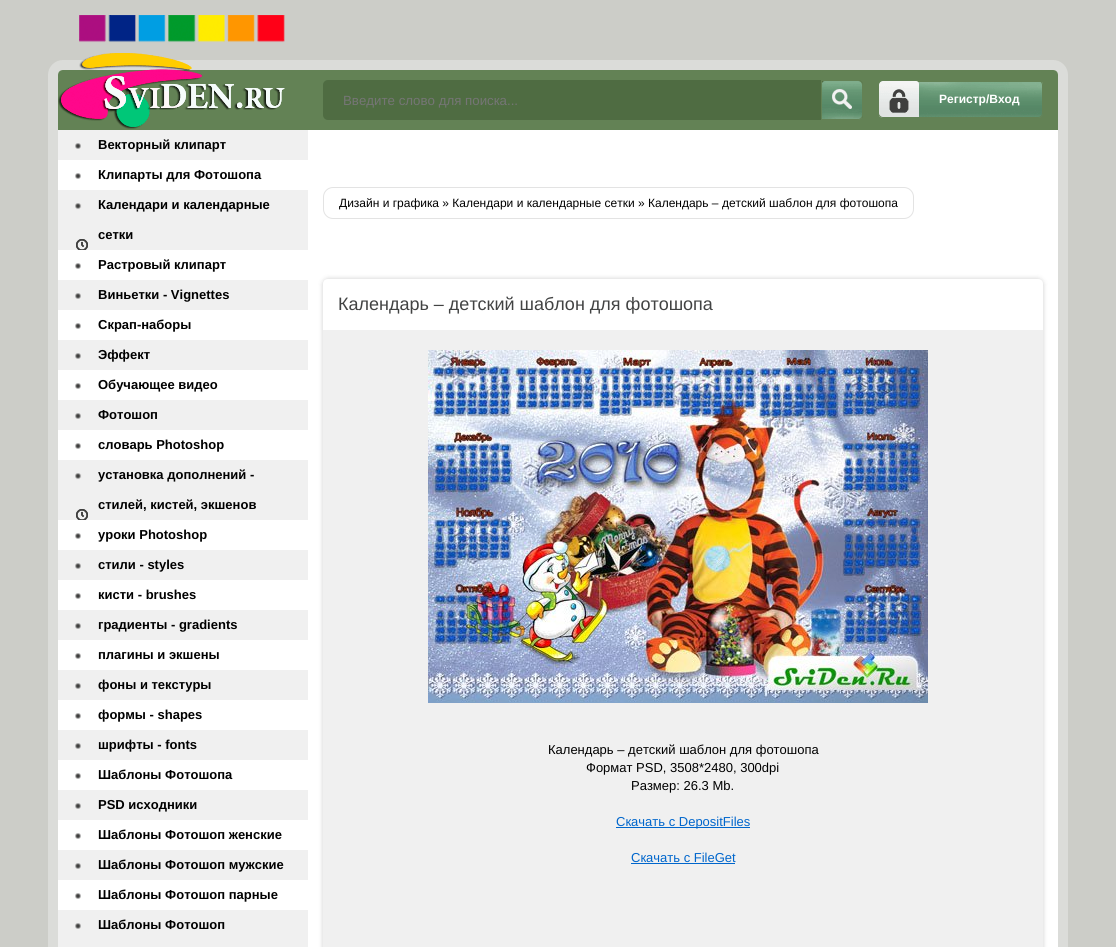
import math
import cairo



def rounded_rect(context, x, y, w, h, r):
    context.new_sub_path()
    for i, (u, v) in enumerate([(x + w - r, y + h - r), (x + r, y + h - r), (x + r, y + r), (x + w - r, y + r)]):
        context.arc(u, v, r, i * math.pi / 2, (i + 1) * math.pi / 2)
    context.close_path()


def draw_shadow(context, x, y, w, h, r, blur, alpha):
    context.push_group_with_content(cairo.Content.ALPHA)
    context.set_operator(cairo.Operator.SOURCE)
    for i in range(15, -16, -2):
        e = blur * i / 6
        if min(w, h) + 2 * e > 0:
            context.set_source_rgba(0, 0, 0, alpha * math.erfc((i - 1) / 8.5) / 2)
            rounded_rect(context, x - e, y - e, w + 2 * e, h + 2 * e, max(0, min(r + e + blur * .6, min(w, h) / 2 + e)))
            context.fill()
    context.mask(context.pop_group())


def draw_image(context, path, x, y, w, h):
    context.save()
    context.set_source_surface(cairo.ImageSurface.create_from_png(path), x, y)
    context.rectangle(x, y, w, h)
    context.fill()
    context.restore()


def draw(context):
    context.set_source_rgb(204 / 255, 205 / 255, 200 / 255)
    context.paint()
    rounded_rect(context, 53, 65, 1010, 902, 10)
    context.set_source_rgb(219 / 255, 220 / 255, 217 / 255)
    context.set_line_width(10)
    context.stroke()
    context.set_source_rgb(1, 1, 1)
    rounded_rect(context, 58, 70, 1000, 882, 5)
    context.fill()
    context.set_source_rgb(99 / 255, 130 / 255, 85 / 255)
    context.new_path()
    context.move_to(63, 70)
    context.line_to(1053, 70)
    context.curve_to(1056, 70, 1058, 72, 1058, 75)
    context.line_to(1058, 130)
    context.line_to(58, 130)
    context.line_to(58, 75)
    context.curve_to(58, 72, 60, 70, 63, 70)
    context.close_path()
    context.fill()
    draw_image(context, "images/1.png", 58, 15, 227, 114)
    context.set_source_rgb(79 / 255, 108 / 255, 66 / 255)
    rounded_rect(context, 323, 80, 540, 40, 5)
    context.fill()
    draw_image(context, "images/2.png", 822, 81, 40, 39)
    context.new_path()
    context.move_to(821.5, 80.5)
    context.line_to(858, 80.5)
    context.curve_to(860.5, 80.5, 862.5, 82.5, 862.5, 85)
    context.line_to(862.5, 115)
    context.curve_to(862.5, 117.5, 860.5, 119.5, 858, 119.5)
    context.line_to(821.5, 119.5)
    context.close_path()
    context.set_source_rgb(99 / 255, 130 / 255, 85 / 255)
    context.set_line_width(1)
    context.stroke()
    draw_image(context, "images/3.png", 879, 81, 164, 37)
    rounded_rect(context, 878.5, 80.5, 164, 37, 4.5)
    context.stroke()
    context.set_source_rgb(240 / 255, 240 / 255, 240 / 255)
    context.rectangle(58, 130, 250, 30)
    context.fill()
    draw_image(context, "images/4.png", 75, 143, 6, 6)
    draw_image(context, "images/5.png", 75, 173, 6, 6)
    context.rectangle(58, 190, 250, 60)
    context.fill()
    draw_image(context, "images/6.png", 75, 203, 13, 47)
    draw_image(context, "images/5.png", 75, 263, 6, 6)
    context.rectangle(58, 280, 250, 30)
    context.fill()
    draw_image(context, "images/4.png", 75, 293, 6, 6)
    draw_image(context, "images/5.png", 75, 323, 6, 6)
    context.rectangle(58, 340, 250, 30)
    context.fill()
    draw_image(context, "images/4.png", 75, 353, 6, 6)
    draw_image(context, "images/5.png", 75, 383, 6, 6)
    context.rectangle(58, 400, 250, 30)
    context.fill()
    draw_image(context, "images/4.png", 75, 413, 6, 6)
    draw_image(context, "images/5.png", 75, 443, 6, 6)
    context.rectangle(58, 460, 250, 60)
    context.fill()
    draw_image(context, "images/6.png", 75, 473, 13, 47)
    draw_image(context, "images/5.png", 75, 533, 6, 6)
    context.rectangle(58, 550, 250, 30)
    context.fill()
    draw_image(context, "images/4.png", 75, 563, 6, 6)
    draw_image(context, "images/5.png", 75, 593, 6, 6)
    context.rectangle(58, 610, 250, 30)
    context.fill()
    draw_image(context, "images/4.png", 75, 623, 6, 6)
    draw_image(context, "images/5.png", 75, 653, 6, 6)
    context.rectangle(58, 670, 250, 30)
    context.fill()
    draw_image(context, "images/4.png", 75, 683, 6, 6)
    draw_image(context, "images/5.png", 75, 713, 6, 6)
    context.rectangle(58, 730, 250, 30)
    context.fill()
    draw_image(context, "images/4.png", 75, 743, 6, 6)
    draw_image(context, "images/5.png", 75, 773, 6, 6)
    context.rectangle(58, 790, 250, 30)
    context.fill()
    draw_image(context, "images/4.png", 75, 803, 6, 6)
    draw_image(context, "images/5.png", 75, 833, 6, 6)
    context.rectangle(58, 850, 250, 30)
    context.fill()
    draw_image(context, "images/4.png", 75, 863, 6, 6)
    draw_image(context, "images/5.png", 75, 893, 6, 6)
    context.rectangle(58, 910, 250, 37)
    context.fill()
    draw_image(context, "images/4.png", 75, 923, 6, 6)
    rounded_rect(context, 323.5, 187.5, 590, 31, 9.5)
    context.set_source_rgb(227 / 255, 227 / 255, 227 / 255)
    context.stroke()
    context.set_source_rgb(0, 0, 0)
    draw_shadow(context, 323, 279, 720, 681, 5, 2.5, 0.2)
    context.set_source_rgb(240 / 255, 240 / 255, 240 / 255)
    rounded_rect(context, 323, 279, 720, 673, 5)
    context.fill()
    context.set_source_rgb(1, 1, 1)
    context.new_path()
    context.move_to(328, 279)
    context.line_to(1038, 279)
    context.curve_to(1041, 279, 1043, 281, 1043, 284)
    context.line_to(1043, 330)
    context.line_to(323, 330)
    context.line_to(323, 284)
    context.curve_to(323, 281, 325, 279, 328, 279)
    context.close_path()
    context.fill()
    draw_image(context, "images/7.png", 428, 350, 500, 353)
    context.set_source_rgb(0, 102 / 255, 204 / 255)
    context.rectangle(616, 827, 134, 1)
    context.fill()
    context.rectangle(631, 863, 104, 1)
    context.fill()
    context.select_font_face("Liberation Sans")
    context.set_font_size(13.3)
    context.set_source_rgb(117 / 255, 117 / 255, 117 / 255)
    context.move_to(343, 105)
    context.show_text("Введите слово для поиска...")
    context.select_font_face("Liberation Sans", cairo.FontSlant.NORMAL, cairo.FontWeight.BOLD)
    context.set_font_size(12)
    context.set_source_rgb(1, 1, 1)
    context.move_to(939, 103)
    context.show_text("Регистр/Вход")
    context.set_font_size(13)
    context.set_source_rgb(0, 0, 0)
    context.move_to(98, 149)
    context.show_text("Векторный клипарт")
    context.move_to(98, 179)
    context.show_text("Клипарты для Фотошопа")
    context.move_to(98, 209)
    context.show_text("Календари и календарные")
    context.move_to(98, 239)
    context.show_text("сетки")
    context.move_to(98, 269)
    context.show_text("Растровый клипарт")
    context.move_to(98, 299)
    context.show_text("Виньетки - Vignettes")
    context.move_to(98, 329)
    context.show_text("Скрап-наборы")
    context.move_to(98, 359)
    context.show_text("Эффект")
    context.move_to(98, 389)
    context.show_text("Обучающее видео")
    context.move_to(98, 419)
    context.show_text("Фотошоп")
    context.move_to(98, 449)
    context.show_text("словарь Photoshop")
    context.move_to(98, 479)
    context.show_text("установка дополнений -")
    context.move_to(98, 509)
    context.show_text("стилей, кистей, экшенов")
    context.move_to(98, 539)
    context.show_text("уроки Photoshop")
    context.move_to(98, 569)
    context.show_text("стили - styles")
    context.move_to(98, 599)
    context.show_text("кисти - brushes")
    context.move_to(98, 629)
    context.show_text("градиенты - gradients")
    context.move_to(98, 659)
    context.show_text("плагины и экшены")
    context.move_to(98, 689)
    context.show_text("фоны и текстуры")
    context.move_to(98, 719)
    context.show_text("формы - shapes")
    context.move_to(98, 749)
    context.show_text("шрифты - fonts")
    context.move_to(98, 779)
    context.show_text("Шаблоны Фотошопа")
    context.move_to(98, 809)
    context.show_text("PSD исходники")
    context.move_to(98, 839)
    context.show_text("Шаблоны Фотошоп женские")
    context.move_to(98, 869)
    context.show_text("Шаблоны Фотошоп мужские")
    context.move_to(98, 899)
    context.show_text("Шаблоны Фотошоп парные")
    context.move_to(98, 929)
    context.show_text("Шаблоны Фотошоп")
    context.select_font_face("Liberation Sans")
    context.set_font_size(12)
    context.move_to(339, 207)
    context.show_text("Дизайн и графика » Календари и календарные сетки » Календарь – детский шаблон для фотошопа")
    context.set_font_size(18)
    context.set_source_rgb(66 / 255, 67 / 255, 67 / 255)
    context.move_to(338, 310)
    context.show_text("Календарь – детский шаблон для фотошопа")
    context.set_font_size(13)
    context.set_source_rgb(0, 0, 0)
    context.move_to(548, 754)
    context.show_text("Календарь – детский шаблон для фотошопа")
    context.move_to(586, 772)
    context.show_text("Формат PSD, 3508*2480, 300dpi")
    context.move_to(631, 790)
    context.show_text("Размер: 26.3 Mb.")
    context.set_source_rgb(0, 102 / 255, 204 / 255)
    context.move_to(616, 826)
    context.show_text("Скачать с DepositFiles")
    context.move_to(631, 862)
    context.show_text("Скачать с FileGet")


surface = cairo.ImageSurface(cairo.Format.RGB24, 1116, 947)
context = cairo.Context(surface)
options = cairo.FontOptions()
options.set_hint_metrics(cairo.HintMetrics.OFF)
options.set_hint_style(cairo.HintStyle.NONE)
context.set_font_options(options)
context.set_miter_limit(4)
draw(context)
surface.write_to_png("out.png")
